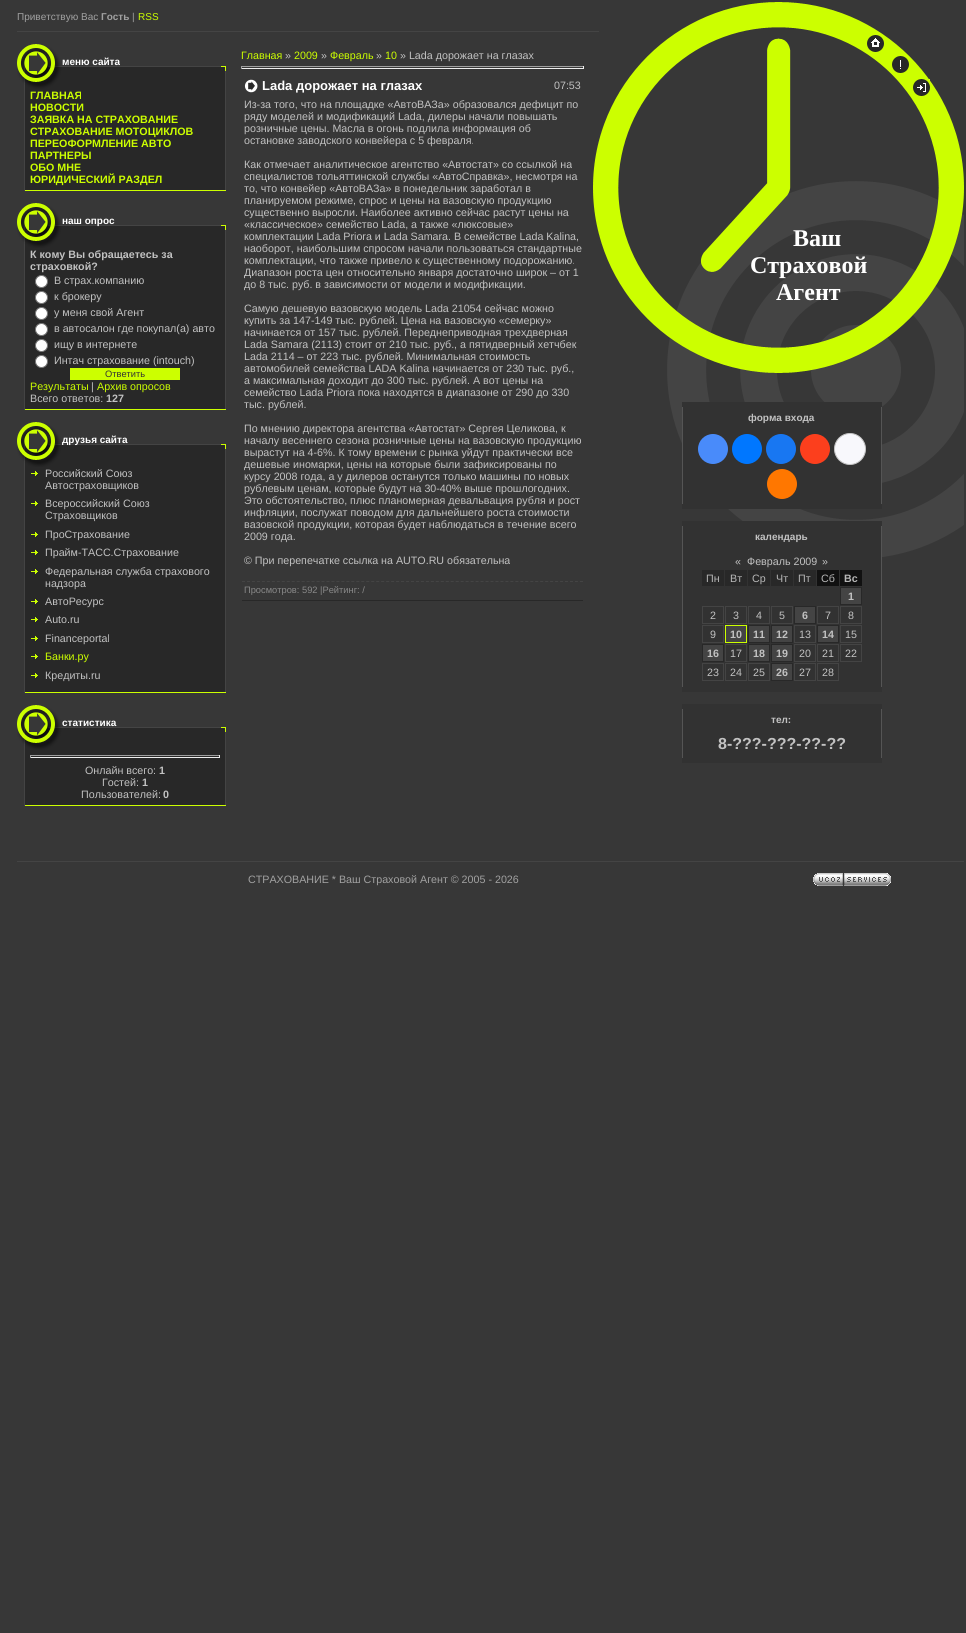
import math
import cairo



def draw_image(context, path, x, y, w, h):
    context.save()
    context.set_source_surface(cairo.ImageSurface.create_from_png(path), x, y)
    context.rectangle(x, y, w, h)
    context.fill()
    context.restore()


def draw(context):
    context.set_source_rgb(55 / 255, 55 / 255, 55 / 255)
    context.paint()
    draw_image(context, "images/1.png", 593, 2, 371, 557)
    context.set_source_rgb(68 / 255, 68 / 255, 68 / 255)
    context.rectangle(17, 31, 582, 1)
    context.fill()
    draw_image(context, "images/2.png", 17, 44, 209, 45)
    context.set_source_rgb(40 / 255, 40 / 255, 40 / 255)
    context.rectangle(25, 89, 200, 101)
    context.fill()
    context.set_source_rgb(68 / 255, 68 / 255, 68 / 255)
    context.rectangle(225, 89, 1, 102)
    context.fill()
    context.set_source_rgb(204 / 255, 1, 0)
    context.rectangle(24, 190, 202, 1)
    context.fill()
    context.set_source_rgb(68 / 255, 68 / 255, 68 / 255)
    context.rectangle(24, 89, 1, 102)
    context.fill()
    draw_image(context, "images/2.png", 17, 203, 209, 45)
    context.set_source_rgb(40 / 255, 40 / 255, 40 / 255)
    context.rectangle(25, 248, 200, 161)
    context.fill()
    context.set_source_rgb(68 / 255, 68 / 255, 68 / 255)
    context.rectangle(225, 248, 1, 162)
    context.fill()
    context.set_source_rgb(204 / 255, 1, 0)
    context.rectangle(24, 409, 202, 1)
    context.fill()
    context.set_source_rgb(68 / 255, 68 / 255, 68 / 255)
    context.rectangle(24, 248, 1, 162)
    context.fill()
    context.set_source_rgb(1, 1, 1)
    context.arc(41.5, 281.5, 6, 0, 2 * math.pi)
    context.fill_preserve()
    context.set_source_rgb(118 / 255, 118 / 255, 118 / 255)
    context.set_line_width(1)
    context.stroke()
    context.set_source_rgb(1, 1, 1)
    context.arc(41.5, 297.5, 6, 0, 2 * math.pi)
    context.fill_preserve()
    context.set_source_rgb(118 / 255, 118 / 255, 118 / 255)
    context.stroke()
    context.set_source_rgb(1, 1, 1)
    context.arc(41.5, 313.5, 6, 0, 2 * math.pi)
    context.fill_preserve()
    context.set_source_rgb(118 / 255, 118 / 255, 118 / 255)
    context.stroke()
    context.set_source_rgb(1, 1, 1)
    context.arc(41.5, 329.5, 6, 0, 2 * math.pi)
    context.fill_preserve()
    context.set_source_rgb(118 / 255, 118 / 255, 118 / 255)
    context.stroke()
    context.set_source_rgb(1, 1, 1)
    context.arc(41.5, 345.5, 6, 0, 2 * math.pi)
    context.fill_preserve()
    context.set_source_rgb(118 / 255, 118 / 255, 118 / 255)
    context.stroke()
    context.set_source_rgb(1, 1, 1)
    context.arc(41.5, 361.5, 6, 0, 2 * math.pi)
    context.fill_preserve()
    context.set_source_rgb(118 / 255, 118 / 255, 118 / 255)
    context.stroke()
    context.set_source_rgb(204 / 255, 1, 0)
    context.rectangle(70, 368, 110, 12)
    context.fill()
    draw_image(context, "images/2.png", 17, 422, 209, 45)
    context.set_source_rgb(40 / 255, 40 / 255, 40 / 255)
    context.rectangle(25, 467, 200, 225)
    context.fill()
    context.set_source_rgb(68 / 255, 68 / 255, 68 / 255)
    context.rectangle(225, 467, 1, 226)
    context.fill()
    context.set_source_rgb(204 / 255, 1, 0)
    context.rectangle(24, 692, 202, 1)
    context.fill()
    context.set_source_rgb(68 / 255, 68 / 255, 68 / 255)
    context.rectangle(24, 467, 1, 226)
    context.fill()
    draw_image(context, "images/3.png", 31, 471, 7, 5)
    draw_image(context, "images/3.png", 31, 501, 7, 5)
    draw_image(context, "images/3.png", 31, 532, 7, 5)
    draw_image(context, "images/3.png", 31, 550, 7, 5)
    draw_image(context, "images/3.png", 31, 569, 7, 5)
    draw_image(context, "images/3.png", 31, 599, 7, 5)
    draw_image(context, "images/3.png", 31, 617, 7, 5)
    draw_image(context, "images/3.png", 31, 636, 7, 5)
    draw_image(context, "images/3.png", 31, 654, 7, 5)
    draw_image(context, "images/3.png", 31, 673, 7, 5)
    draw_image(context, "images/2.png", 17, 705, 209, 45)
    context.set_source_rgb(40 / 255, 40 / 255, 40 / 255)
    context.rectangle(25, 750, 200, 55)
    context.fill()
    context.set_source_rgb(68 / 255, 68 / 255, 68 / 255)
    context.rectangle(225, 750, 1, 56)
    context.fill()
    context.set_source_rgb(204 / 255, 1, 0)
    context.rectangle(24, 805, 202, 1)
    context.fill()
    context.set_source_rgb(68 / 255, 68 / 255, 68 / 255)
    context.rectangle(24, 750, 1, 56)
    context.fill()
    context.set_source_rgb(159 / 255, 159 / 255, 159 / 255)
    context.rectangle(30, 755, 190, 1)
    context.fill()
    context.set_source_rgb(238 / 255, 238 / 255, 238 / 255)
    context.rectangle(219, 755, 1, 3)
    context.fill()
    context.rectangle(30, 757, 190, 1)
    context.fill()
    context.set_source_rgb(159 / 255, 159 / 255, 159 / 255)
    context.rectangle(30, 755, 1, 3)
    context.fill()
    context.rectangle(241, 66, 343, 1)
    context.fill()
    context.set_source_rgb(238 / 255, 238 / 255, 238 / 255)
    context.rectangle(583, 66, 1, 3)
    context.fill()
    context.rectangle(241, 68, 343, 1)
    context.fill()
    context.set_source_rgb(159 / 255, 159 / 255, 159 / 255)
    context.rectangle(241, 66, 1, 3)
    context.fill()
    draw_image(context, "images/4.png", 244, 79, 14, 14)
    context.new_path()
    context.move_to(242, 581.5)
    context.line_to(583, 581.5)
    context.set_source_rgb(68 / 255, 68 / 255, 68 / 255)
    context.set_dash([3, 1.97])
    context.stroke()
    context.set_source_rgb(40 / 255, 40 / 255, 40 / 255)
    context.rectangle(242, 600, 341, 1)
    context.fill()
    draw_image(context, "images/5.png", 867, 35, 17, 17)
    draw_image(context, "images/6.png", 892, 56, 17, 17)
    draw_image(context, "images/7.png", 913, 79, 17, 17)
    context.set_source_rgb(50 / 255, 50 / 255, 50 / 255)
    context.rectangle(682, 402, 200, 5)
    context.fill()
    context.rectangle(683, 407, 198, 97)
    context.fill()
    context.set_source_rgb(85 / 255, 85 / 255, 85 / 255)
    context.rectangle(881, 407, 1, 97)
    context.fill()
    context.rectangle(682, 407, 1, 97)
    context.fill()
    context.set_source_rgb(73 / 255, 139 / 255, 250 / 255)
    context.arc(713, 449, 15, 0, 2 * math.pi)
    context.fill()
    context.set_source_rgb(0, 119 / 255, 1)
    context.arc(747, 449, 15, 0, 2 * math.pi)
    context.fill()
    context.set_source_rgb(24 / 255, 119 / 255, 242 / 255)
    context.arc(781, 449, 15, 0, 2 * math.pi)
    context.fill()
    context.set_source_rgb(252 / 255, 63 / 255, 29 / 255)
    context.arc(815, 449, 15, 0, 2 * math.pi)
    context.fill()
    context.set_source_rgb(248 / 255, 248 / 255, 252 / 255)
    context.arc(850, 449, 15.5, 0, 2 * math.pi)
    context.fill_preserve()
    context.set_source_rgb(196 / 255, 196 / 255, 196 / 255)
    context.set_dash([])
    context.stroke()
    context.set_source_rgb(1, 119 / 255, 0)
    context.arc(782, 484, 15, 0, 2 * math.pi)
    context.fill()
    context.set_source_rgb(50 / 255, 50 / 255, 50 / 255)
    context.rectangle(682, 504, 200, 5)
    context.fill()
    context.rectangle(682, 521, 200, 5)
    context.fill()
    context.rectangle(683, 526, 198, 161)
    context.fill()
    context.set_source_rgb(85 / 255, 85 / 255, 85 / 255)
    context.rectangle(881, 526, 1, 161)
    context.fill()
    context.rectangle(682, 526, 1, 161)
    context.fill()
    context.set_source_rgb(40 / 255, 40 / 255, 40 / 255)
    context.rectangle(702, 570, 22, 16)
    context.fill()
    context.rectangle(725, 570, 22, 16)
    context.fill()
    context.rectangle(748, 570, 22, 16)
    context.fill()
    context.rectangle(771, 570, 22, 16)
    context.fill()
    context.rectangle(794, 570, 22, 16)
    context.fill()
    context.set_source_rgb(17 / 255, 17 / 255, 17 / 255)
    context.rectangle(817, 570, 22, 16)
    context.fill()
    context.rectangle(840, 570, 22, 16)
    context.fill()
    context.set_source_rgb(68 / 255, 68 / 255, 68 / 255)
    context.rectangle(840.5, 587.5, 21, 17)
    context.fill_preserve()
    context.set_source_rgb(40 / 255, 40 / 255, 40 / 255)
    context.stroke()
    context.rectangle(702.5, 606.5, 21, 17)
    context.set_source_rgb(68 / 255, 68 / 255, 68 / 255)
    context.stroke()
    context.rectangle(725.5, 606.5, 21, 17)
    context.stroke()
    context.rectangle(748.5, 606.5, 21, 17)
    context.stroke()
    context.rectangle(771.5, 606.5, 21, 17)
    context.stroke()
    context.rectangle(794.5, 606.5, 21, 17)
    context.fill_preserve()
    context.set_source_rgb(40 / 255, 40 / 255, 40 / 255)
    context.stroke()
    context.rectangle(817.5, 606.5, 21, 17)
    context.set_source_rgb(68 / 255, 68 / 255, 68 / 255)
    context.stroke()
    context.rectangle(840.5, 606.5, 21, 17)
    context.stroke()
    context.rectangle(702.5, 625.5, 21, 17)
    context.stroke()
    context.rectangle(725.5, 625.5, 21, 17)
    context.fill_preserve()
    context.set_source_rgb(204 / 255, 1, 0)
    context.stroke()
    context.set_source_rgb(68 / 255, 68 / 255, 68 / 255)
    context.rectangle(748.5, 625.5, 21, 17)
    context.fill_preserve()
    context.set_source_rgb(40 / 255, 40 / 255, 40 / 255)
    context.stroke()
    context.set_source_rgb(68 / 255, 68 / 255, 68 / 255)
    context.rectangle(771.5, 625.5, 21, 17)
    context.fill_preserve()
    context.set_source_rgb(40 / 255, 40 / 255, 40 / 255)
    context.stroke()
    context.rectangle(794.5, 625.5, 21, 17)
    context.set_source_rgb(68 / 255, 68 / 255, 68 / 255)
    context.stroke()
    context.rectangle(817.5, 625.5, 21, 17)
    context.fill_preserve()
    context.set_source_rgb(40 / 255, 40 / 255, 40 / 255)
    context.stroke()
    context.rectangle(840.5, 625.5, 21, 17)
    context.set_source_rgb(68 / 255, 68 / 255, 68 / 255)
    context.stroke()
    context.rectangle(702.5, 644.5, 21, 17)
    context.fill_preserve()
    context.set_source_rgb(40 / 255, 40 / 255, 40 / 255)
    context.stroke()
    context.rectangle(725.5, 644.5, 21, 17)
    context.set_source_rgb(68 / 255, 68 / 255, 68 / 255)
    context.stroke()
    context.rectangle(748.5, 644.5, 21, 17)
    context.fill_preserve()
    context.set_source_rgb(40 / 255, 40 / 255, 40 / 255)
    context.stroke()
    context.set_source_rgb(68 / 255, 68 / 255, 68 / 255)
    context.rectangle(771.5, 644.5, 21, 17)
    context.fill_preserve()
    context.set_source_rgb(40 / 255, 40 / 255, 40 / 255)
    context.stroke()
    context.rectangle(794.5, 644.5, 21, 17)
    context.set_source_rgb(68 / 255, 68 / 255, 68 / 255)
    context.stroke()
    context.rectangle(817.5, 644.5, 21, 17)
    context.stroke()
    context.rectangle(840.5, 644.5, 21, 17)
    context.stroke()
    context.rectangle(702.5, 663.5, 21, 17)
    context.stroke()
    context.rectangle(725.5, 663.5, 21, 17)
    context.stroke()
    context.rectangle(748.5, 663.5, 21, 17)
    context.stroke()
    context.rectangle(771.5, 663.5, 21, 17)
    context.fill_preserve()
    context.set_source_rgb(40 / 255, 40 / 255, 40 / 255)
    context.stroke()
    context.rectangle(794.5, 663.5, 21, 17)
    context.set_source_rgb(68 / 255, 68 / 255, 68 / 255)
    context.stroke()
    context.rectangle(817.5, 663.5, 21, 17)
    context.stroke()
    context.set_source_rgb(50 / 255, 50 / 255, 50 / 255)
    context.rectangle(682, 687, 200, 5)
    context.fill()
    context.rectangle(682, 704, 200, 5)
    context.fill()
    context.rectangle(683, 709, 198, 49)
    context.fill()
    context.set_source_rgb(85 / 255, 85 / 255, 85 / 255)
    context.rectangle(881, 709, 1, 49)
    context.fill()
    context.rectangle(682, 709, 1, 49)
    context.fill()
    context.set_source_rgb(50 / 255, 50 / 255, 50 / 255)
    context.rectangle(682, 758, 200, 5)
    context.fill()
    context.set_source_rgb(68 / 255, 68 / 255, 68 / 255)
    context.rectangle(17, 861, 947, 1)
    context.fill()
    draw_image(context, "images/8.png", 813, 873, 78, 13)
    context.select_font_face("Liberation Sans")
    context.set_font_size(10)
    context.set_source_rgb(161 / 255, 161 / 255, 161 / 255)
    context.move_to(17, 20)
    context.show_text("Приветствую Вас")
    context.select_font_face("Liberation Sans", cairo.FontSlant.NORMAL, cairo.FontWeight.BOLD)
    context.move_to(101, 20)
    context.show_text("Гость")
    context.select_font_face("Liberation Sans")
    context.move_to(132, 20)
    context.show_text("|")
    context.set_source_rgb(204 / 255, 1, 0)
    context.move_to(138, 20)
    context.show_text("RSS")
    context.select_font_face("Liberation Sans", cairo.FontSlant.NORMAL, cairo.FontWeight.BOLD)
    context.set_source_rgb(1, 1, 1)
    context.move_to(62, 65)
    context.show_text("меню сайта")
    context.set_font_size(10.7)
    context.set_source_rgb(204 / 255, 1, 0)
    context.move_to(30, 99)
    context.show_text("ГЛАВНАЯ")
    context.move_to(30, 111)
    context.show_text("НОВОСТИ")
    context.move_to(30, 123)
    context.show_text("ЗАЯВКА НА СТРАХОВАНИЕ")
    context.move_to(30, 135)
    context.show_text("СТРАХОВАНИЕ МОТОЦИКЛОВ")
    context.move_to(30, 147)
    context.show_text("ПЕРЕОФОРМЛЕНИЕ АВТО")
    context.move_to(30, 159)
    context.show_text("ПАРТНЕРЫ")
    context.move_to(30, 171)
    context.show_text("ОБО МНЕ")
    context.move_to(30, 183)
    context.show_text("ЮРИДИЧЕСКИЙ РАЗДЕЛ")
    context.set_font_size(10)
    context.set_source_rgb(1, 1, 1)
    context.move_to(62, 224)
    context.show_text("наш опрос")
    context.set_font_size(10.7)
    context.set_source_rgb(194 / 255, 194 / 255, 194 / 255)
    context.move_to(30, 258)
    context.show_text("К кому Вы обращаетесь за")
    context.move_to(30, 270)
    context.show_text("страховкой?")
    context.select_font_face("Liberation Sans")
    context.move_to(54, 284)
    context.show_text("В страх.компанию")
    context.move_to(54, 300)
    context.show_text("к брокеру")
    context.move_to(54, 316)
    context.show_text("у меня свой Агент")
    context.move_to(54, 332)
    context.show_text("в автосалон где покупал(а) авто")
    context.move_to(54, 348)
    context.show_text("ищу в интернете")
    context.move_to(54, 364)
    context.show_text("Интач страхование (intouch)")
    context.set_font_size(9.3)
    context.set_source_rgb(50 / 255, 50 / 255, 50 / 255)
    context.move_to(105, 377)
    context.show_text("Ответить")
    context.set_font_size(10.7)
    context.set_source_rgb(204 / 255, 1, 0)
    context.move_to(30, 390)
    context.show_text("Результаты")
    context.set_source_rgb(194 / 255, 194 / 255, 194 / 255)
    context.move_to(91, 390)
    context.show_text("|")
    context.set_source_rgb(204 / 255, 1, 0)
    context.move_to(97, 390)
    context.show_text("Архив опросов")
    context.set_source_rgb(194 / 255, 194 / 255, 194 / 255)
    context.move_to(30, 402)
    context.show_text("Всего ответов:")
    context.select_font_face("Liberation Sans", cairo.FontSlant.NORMAL, cairo.FontWeight.BOLD)
    context.move_to(106, 402)
    context.show_text("127")
    context.set_font_size(10)
    context.set_source_rgb(1, 1, 1)
    context.move_to(62, 443)
    context.show_text("друзья сайта")
    context.select_font_face("Liberation Sans")
    context.set_font_size(10.7)
    context.set_source_rgb(194 / 255, 194 / 255, 194 / 255)
    context.move_to(45, 477)
    context.show_text("Российский Союз")
    context.move_to(45, 489)
    context.show_text("Автостраховщиков")
    context.move_to(45, 507)
    context.show_text("Всероссийский Союз")
    context.move_to(45, 519)
    context.show_text("Страховщиков")
    context.move_to(45, 538)
    context.show_text("ПроСтрахование")
    context.move_to(45, 556)
    context.show_text("Прайм-ТАСС.Страхование")
    context.move_to(45, 575)
    context.show_text("Федеральная служба страхового")
    context.move_to(45, 587)
    context.show_text("надзора")
    context.move_to(45, 605)
    context.show_text("АвтоРесурс")
    context.move_to(45, 623)
    context.show_text("Auto.ru")
    context.move_to(45, 642)
    context.show_text("Financeportal")
    context.set_source_rgb(204 / 255, 1, 0)
    context.move_to(45, 660)
    context.show_text("Банки.ру")
    context.set_source_rgb(194 / 255, 194 / 255, 194 / 255)
    context.move_to(45, 679)
    context.show_text("Кредиты.ru")
    context.select_font_face("Liberation Sans", cairo.FontSlant.NORMAL, cairo.FontWeight.BOLD)
    context.set_font_size(10)
    context.set_source_rgb(1, 1, 1)
    context.move_to(62, 726)
    context.show_text("статистика")
    context.select_font_face("Liberation Sans")
    context.set_font_size(10.7)
    context.set_source_rgb(194 / 255, 194 / 255, 194 / 255)
    context.move_to(85, 774)
    context.show_text("Онлайн всего:")
    context.select_font_face("Liberation Sans", cairo.FontSlant.NORMAL, cairo.FontWeight.BOLD)
    context.move_to(159, 774)
    context.show_text("1")
    context.select_font_face("Liberation Sans")
    context.move_to(102, 786)
    context.show_text("Гостей:")
    context.select_font_face("Liberation Sans", cairo.FontSlant.NORMAL, cairo.FontWeight.BOLD)
    context.move_to(142, 786)
    context.show_text("1")
    context.select_font_face("Liberation Sans")
    context.move_to(81, 798)
    context.show_text("Пользователей:")
    context.select_font_face("Liberation Sans", cairo.FontSlant.NORMAL, cairo.FontWeight.BOLD)
    context.move_to(163, 798)
    context.show_text("0")
    context.select_font_face("Liberation Sans")
    context.set_source_rgb(204 / 255, 1, 0)
    context.move_to(241, 59)
    context.show_text("Главная")
    context.set_source_rgb(194 / 255, 194 / 255, 194 / 255)
    context.move_to(285, 59)
    context.show_text("»")
    context.set_source_rgb(204 / 255, 1, 0)
    context.move_to(294, 59)
    context.show_text("2009")
    context.set_source_rgb(194 / 255, 194 / 255, 194 / 255)
    context.move_to(321, 59)
    context.show_text("»")
    context.set_source_rgb(204 / 255, 1, 0)
    context.move_to(330, 59)
    context.show_text("Февраль")
    context.set_source_rgb(194 / 255, 194 / 255, 194 / 255)
    context.move_to(376, 59)
    context.show_text("»")
    context.set_source_rgb(204 / 255, 1, 0)
    context.move_to(385, 59)
    context.show_text("10")
    context.set_source_rgb(194 / 255, 194 / 255, 194 / 255)
    context.move_to(400, 59)
    context.show_text("» Lada дорожает на глазах")
    context.select_font_face("Liberation Sans", cairo.FontSlant.NORMAL, cairo.FontWeight.BOLD)
    context.set_font_size(13)
    context.set_source_rgb(1, 1, 1)
    context.move_to(262, 90)
    context.show_text("Lada дорожает на глазах")
    context.select_font_face("Liberation Sans")
    context.set_font_size(10.7)
    context.set_source_rgb(194 / 255, 194 / 255, 194 / 255)
    context.move_to(554, 89)
    context.show_text("07:53")
    context.move_to(244, 108)
    context.show_text("Из-за того, что на площадке «АвтоВАЗа» образовался дефицит по")
    context.move_to(244, 120)
    context.show_text("ряду моделей и модификаций Lada, дилеры начали повышать")
    context.move_to(244, 132)
    context.show_text("розничные цены. Масла в огонь подлила информация об")
    context.move_to(244, 144)
    context.show_text("остановке заводского конвейера с 5 февраля.")
    context.move_to(244, 168)
    context.show_text("Как отмечает аналитическое агентство «Автостат» со ссылкой на")
    context.move_to(244, 180)
    context.show_text("специалистов тольяттинской службы «АвтоСправка», несмотря на")
    context.move_to(244, 192)
    context.show_text("то, что конвейер «АвтоВАЗа» в понедельник заработал в")
    context.move_to(244, 204)
    context.show_text("планируемом режиме, спрос и цены на вазовскую продукцию")
    context.move_to(244, 216)
    context.show_text("существенно выросли. Наиболее активно сейчас растут цены на")
    context.move_to(244, 228)
    context.show_text("«классическое» семейство Lada, а также «люксовые»")
    context.move_to(244, 240)
    context.show_text("комплектации Lada Priora и Lada Samara. В семействе Lada Kalina,")
    context.move_to(244, 252)
    context.show_text("наоборот, наибольшим спросом начали пользоваться стандартные")
    context.move_to(244, 264)
    context.show_text("комплектации, что также привело к существенному подорожанию.")
    context.move_to(244, 276)
    context.show_text("Диапазон роста цен относительно января достаточно широк – от 1")
    context.move_to(244, 288)
    context.show_text("до 8 тыс. руб. в зависимости от модели и модификации.")
    context.move_to(244, 312)
    context.show_text("Самую дешевую вазовскую модель Lada 21054 сейчас можно")
    context.move_to(244, 324)
    context.show_text("купить за 147-149 тыс. рублей. Цена на вазовскую «семерку»")
    context.move_to(244, 336)
    context.show_text("начинается от 157 тыс. рублей. Переднеприводная трехдверная")
    context.move_to(244, 348)
    context.show_text("Lada Samara (2113) стоит от 210 тыс. руб., а пятидверный хетчбек")
    context.move_to(244, 360)
    context.show_text("Lada 2114 – от 223 тыс. рублей. Минимальная стоимость")
    context.move_to(244, 372)
    context.show_text("автомобилей семейства LADA Kalina начинается от 230 тыс. руб.,")
    context.move_to(244, 384)
    context.show_text("а максимальная доходит до 300 тыс. рублей. А вот цены на")
    context.move_to(244, 396)
    context.show_text("семейство Lada Priora пока находятся в диапазоне от 290 до 330")
    context.move_to(244, 408)
    context.show_text("тыс. рублей.")
    context.move_to(244, 432)
    context.show_text("По мнению директора агентства «Автостат» Сергея Целикова, к")
    context.move_to(244, 444)
    context.show_text("началу весеннего сезона розничные цены на вазовскую продукцию")
    context.move_to(244, 456)
    context.show_text("вырастут на 4-6%. К тому времени с рынка уйдут практически все")
    context.move_to(244, 468)
    context.show_text("дешевые иномарки, цены на которые были зафиксированы по")
    context.move_to(244, 480)
    context.show_text("курсу 2008 года, а у дилеров останутся только машины по новых")
    context.move_to(244, 492)
    context.show_text("рублевым ценам, которые будут на 30-40% выше прошлогодних.")
    context.move_to(244, 504)
    context.show_text("Это обстоятельство, плюс планомерная девальвация рубля и рост")
    context.move_to(244, 516)
    context.show_text("инфляции, послужат поводом для дальнейшего роста стоимости")
    context.move_to(244, 528)
    context.show_text("вазовской продукции, которая будет наблюдаться в течение всего")
    context.move_to(244, 540)
    context.show_text("2009 года.")
    context.move_to(244, 564)
    context.show_text("© При перепечатке ссылка на AUTO.RU обязательна")
    context.set_font_size(9.3)
    context.set_source_rgb(137 / 255, 137 / 255, 137 / 255)
    context.move_to(244, 593)
    context.show_text("Просмотров: 592 |Рейтинг: /")
    context.select_font_face("Liberation Serif", cairo.FontSlant.NORMAL, cairo.FontWeight.BOLD)
    context.set_font_size(24)
    context.set_source_rgb(1, 1, 1)
    context.move_to(793, 246)
    context.show_text("Ваш")
    context.move_to(750, 273)
    context.show_text("Страховой")
    context.move_to(776, 300)
    context.show_text("Агент")
    context.select_font_face("Liberation Sans", cairo.FontSlant.NORMAL, cairo.FontWeight.BOLD)
    context.set_font_size(10)
    context.set_source_rgb(194 / 255, 194 / 255, 194 / 255)
    context.move_to(748, 421)
    context.show_text("форма входа")
    context.move_to(755, 540)
    context.show_text("календарь")
    context.select_font_face("Liberation Sans")
    context.set_font_size(10.7)
    context.move_to(735, 565)
    context.show_text("«")
    context.move_to(747, 565)
    context.show_text("Февраль 2009")
    context.move_to(822, 565)
    context.show_text("»")
    context.set_source_rgb(183 / 255, 183 / 255, 183 / 255)
    context.move_to(706, 582)
    context.show_text("Пн")
    context.move_to(730, 582)
    context.show_text("Вт")
    context.move_to(752, 582)
    context.show_text("Ср")
    context.move_to(776, 582)
    context.show_text("Чт")
    context.move_to(798, 582)
    context.show_text("Пт")
    context.move_to(821, 582)
    context.show_text("Сб")
    context.select_font_face("Liberation Sans", cairo.FontSlant.NORMAL, cairo.FontWeight.BOLD)
    context.move_to(844, 582)
    context.show_text("Вс")
    context.set_source_rgb(194 / 255, 194 / 255, 194 / 255)
    context.move_to(848, 600)
    context.show_text("1")
    context.select_font_face("Liberation Sans")
    context.move_to(710, 619)
    context.show_text("2")
    context.move_to(733, 619)
    context.show_text("3")
    context.move_to(756, 619)
    context.show_text("4")
    context.move_to(779, 619)
    context.show_text("5")
    context.select_font_face("Liberation Sans", cairo.FontSlant.NORMAL, cairo.FontWeight.BOLD)
    context.move_to(802, 619)
    context.show_text("6")
    context.select_font_face("Liberation Sans")
    context.move_to(825, 619)
    context.show_text("7")
    context.move_to(848, 619)
    context.show_text("8")
    context.move_to(710, 638)
    context.show_text("9")
    context.select_font_face("Liberation Sans", cairo.FontSlant.NORMAL, cairo.FontWeight.BOLD)
    context.move_to(730, 638)
    context.show_text("10")
    context.move_to(753, 638)
    context.show_text("11")
    context.move_to(776, 638)
    context.show_text("12")
    context.select_font_face("Liberation Sans")
    context.move_to(799, 638)
    context.show_text("13")
    context.select_font_face("Liberation Sans", cairo.FontSlant.NORMAL, cairo.FontWeight.BOLD)
    context.move_to(822, 638)
    context.show_text("14")
    context.select_font_face("Liberation Sans")
    context.move_to(845, 638)
    context.show_text("15")
    context.select_font_face("Liberation Sans", cairo.FontSlant.NORMAL, cairo.FontWeight.BOLD)
    context.move_to(707, 657)
    context.show_text("16")
    context.select_font_face("Liberation Sans")
    context.move_to(730, 657)
    context.show_text("17")
    context.select_font_face("Liberation Sans", cairo.FontSlant.NORMAL, cairo.FontWeight.BOLD)
    context.move_to(753, 657)
    context.show_text("18")
    context.move_to(776, 657)
    context.show_text("19")
    context.select_font_face("Liberation Sans")
    context.move_to(799, 657)
    context.show_text("20")
    context.move_to(822, 657)
    context.show_text("21")
    context.move_to(845, 657)
    context.show_text("22")
    context.move_to(707, 676)
    context.show_text("23")
    context.move_to(730, 676)
    context.show_text("24")
    context.move_to(753, 676)
    context.show_text("25")
    context.select_font_face("Liberation Sans", cairo.FontSlant.NORMAL, cairo.FontWeight.BOLD)
    context.move_to(776, 676)
    context.show_text("26")
    context.select_font_face("Liberation Sans")
    context.move_to(799, 676)
    context.show_text("27")
    context.move_to(822, 676)
    context.show_text("28")
    context.select_font_face("Liberation Sans", cairo.FontSlant.NORMAL, cairo.FontWeight.BOLD)
    context.set_font_size(10)
    context.move_to(771, 723)
    context.show_text("тел:")
    context.set_font_size(16)
    context.move_to(718, 749)
    context.show_text("8-???-???-??-??")
    context.select_font_face("Liberation Sans")
    context.set_font_size(10.7)
    context.set_source_rgb(161 / 255, 161 / 255, 161 / 255)
    context.move_to(248, 883)
    context.show_text("СТРАХОВАНИЕ * Ваш Страховой Агент © 2005 - 2026")


surface = cairo.ImageSurface(cairo.Format.RGB24, 966, 1633)
context = cairo.Context(surface)
options = cairo.FontOptions()
options.set_hint_metrics(cairo.HintMetrics.OFF)
options.set_hint_style(cairo.HintStyle.NONE)
context.set_font_options(options)
context.set_miter_limit(4)
draw(context)
surface.write_to_png("out.png")
